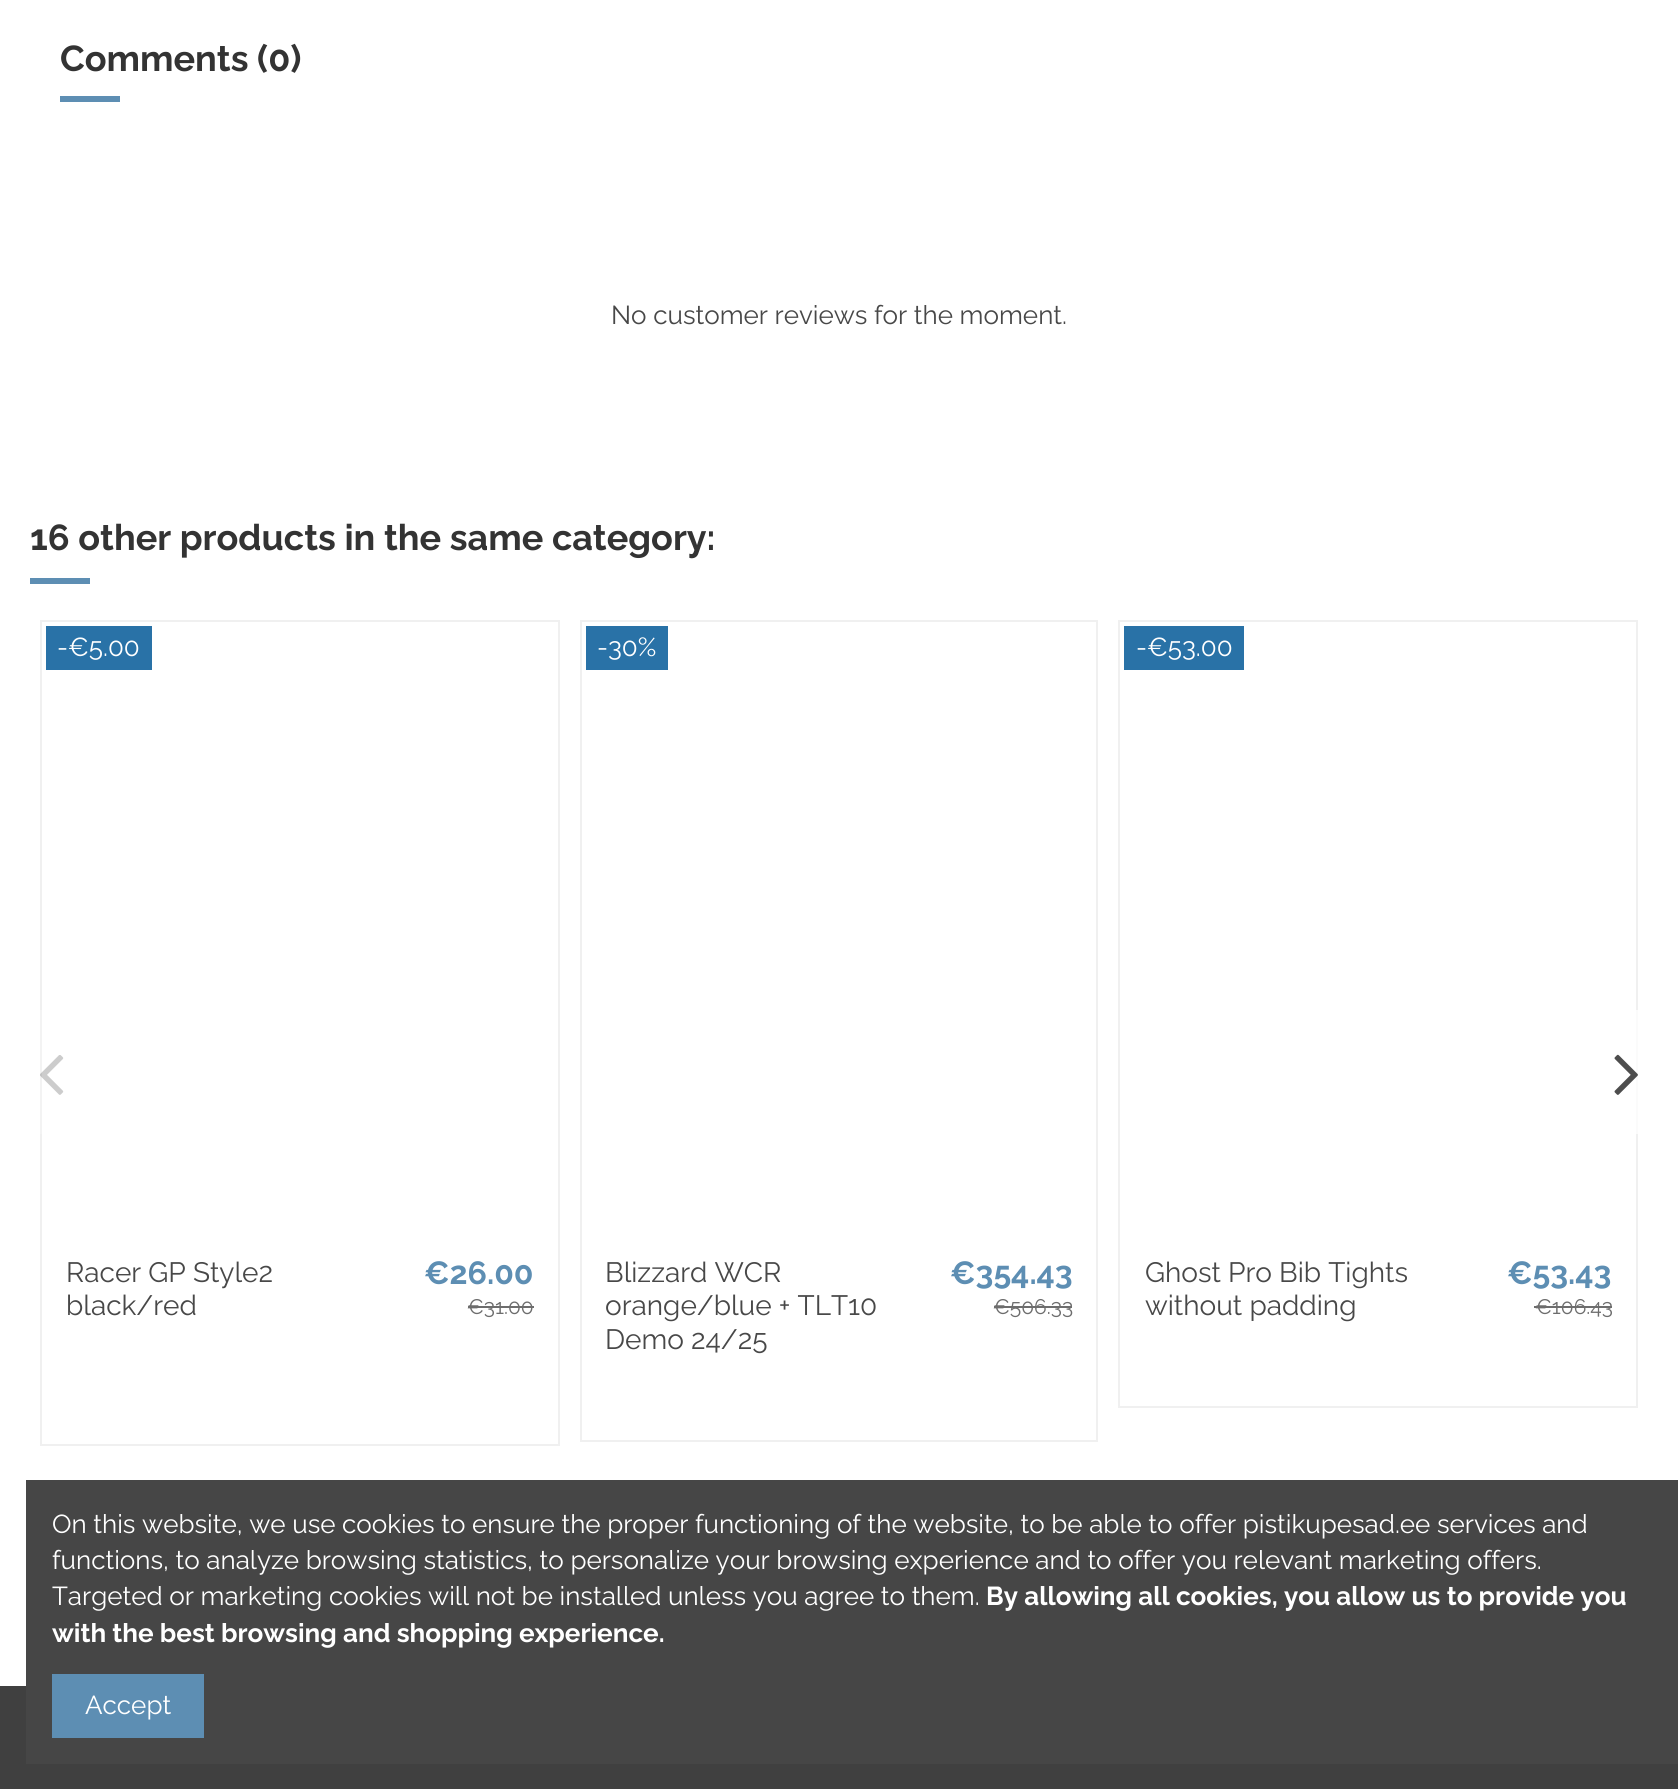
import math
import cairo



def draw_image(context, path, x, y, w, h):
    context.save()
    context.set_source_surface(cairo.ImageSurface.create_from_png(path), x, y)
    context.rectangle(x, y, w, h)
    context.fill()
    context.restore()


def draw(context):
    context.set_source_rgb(1, 1, 1)
    context.paint()
    context.set_source_rgb(93 / 255, 142 / 255, 179 / 255)
    context.rectangle(60, 96, 60, 6)
    context.fill()
    context.rectangle(30, 578, 60, 6)
    context.fill()
    context.rectangle(41, 621, 518, 824)
    context.set_source_rgb(240 / 255, 240 / 255, 240 / 255)
    context.stroke()
    context.set_source_rgba(1, 1, 1, 0.2)
    context.rectangle(40, 1010, 2, 124)
    context.fill()
    draw_image(context, "images/1.png", 40, 1055, 24, 40)
    context.set_source_rgb(41 / 255, 114 / 255, 167 / 255)
    context.rectangle(46, 626, 106, 44)
    context.fill()
    context.set_source_rgb(109 / 255, 109 / 255, 109 / 255)
    context.rectangle(468, 1306, 66, 2)
    context.fill()
    context.rectangle(581, 621, 516, 820)
    context.set_source_rgb(240 / 255, 240 / 255, 240 / 255)
    context.stroke()
    context.set_source_rgb(41 / 255, 114 / 255, 167 / 255)
    context.rectangle(586, 626, 82, 44)
    context.fill()
    context.set_source_rgb(109 / 255, 109 / 255, 109 / 255)
    context.rectangle(994, 1306, 78, 2)
    context.fill()
    context.rectangle(1119, 621, 518, 786)
    context.set_source_rgb(240 / 255, 240 / 255, 240 / 255)
    context.stroke()
    context.set_source_rgb(41 / 255, 114 / 255, 167 / 255)
    context.rectangle(1124, 626, 120, 44)
    context.fill()
    context.set_source_rgb(109 / 255, 109 / 255, 109 / 255)
    context.rectangle(1534, 1306, 78, 2)
    context.fill()
    context.set_source_rgba(1, 1, 1, 0.7)
    context.rectangle(1636, 1010, 2, 124)
    context.fill()
    draw_image(context, "images/2.png", 1614, 1054, 24, 41)
    context.set_source_rgb(64 / 255, 64 / 255, 64 / 255)
    context.rectangle(0, 1686, 1678, 103)
    context.fill()
    context.set_source_rgb(70 / 255, 70 / 255, 70 / 255)
    context.rectangle(26, 1480, 1652, 284)
    context.fill()
    context.set_source_rgb(93 / 255, 142 / 255, 179 / 255)
    context.rectangle(52, 1674, 152, 64)
    context.fill()
    context.select_font_face("Raleway", cairo.FontSlant.NORMAL, cairo.FontWeight.BOLD)
    context.set_font_size(36)
    context.set_source_rgb(51 / 255, 51 / 255, 51 / 255)
    context.move_to(60, 71)
    context.show_text("Comments (0)")
    context.select_font_face("Raleway")
    context.set_font_size(26)
    context.set_source_rgb(72 / 255, 72 / 255, 72 / 255)
    context.move_to(611, 324)
    context.show_text("No customer reviews for the moment.")
    context.select_font_face("Raleway", cairo.FontSlant.NORMAL, cairo.FontWeight.BOLD)
    context.set_font_size(36)
    context.set_source_rgb(51 / 255, 51 / 255, 51 / 255)
    context.move_to(30, 550)
    context.show_text("16 other products in the same category:")
    context.select_font_face("Raleway")
    context.set_font_size(26)
    context.set_source_rgb(1, 1, 1)
    context.move_to(57, 656)
    context.show_text("-€5.00")
    context.set_font_size(28)
    context.set_source_rgb(72 / 255, 72 / 255, 72 / 255)
    context.move_to(66, 1282)
    context.show_text("Racer GP Style2")
    context.move_to(66, 1315)
    context.show_text("black/red")
    context.select_font_face("Raleway", cairo.FontSlant.NORMAL, cairo.FontWeight.BOLD)
    context.set_font_size(32)
    context.set_source_rgb(93 / 255, 142 / 255, 179 / 255)
    context.move_to(424, 1284)
    context.show_text("€26.00")
    context.select_font_face("Raleway")
    context.set_font_size(21)
    context.set_source_rgb(109 / 255, 109 / 255, 109 / 255)
    context.move_to(467, 1314)
    context.show_text("€31.00")
    context.set_font_size(26)
    context.set_source_rgb(1, 1, 1)
    context.move_to(597, 656)
    context.show_text("-30%")
    context.set_font_size(28)
    context.set_source_rgb(72 / 255, 72 / 255, 72 / 255)
    context.move_to(605, 1282)
    context.show_text("Blizzard WCR")
    context.move_to(605, 1315)
    context.show_text("orange/blue + TLT10")
    context.move_to(605, 1349)
    context.show_text("Demo 24/25")
    context.select_font_face("Raleway", cairo.FontSlant.NORMAL, cairo.FontWeight.BOLD)
    context.set_font_size(32)
    context.set_source_rgb(93 / 255, 142 / 255, 179 / 255)
    context.move_to(950, 1284)
    context.show_text("€354.43")
    context.select_font_face("Raleway")
    context.set_font_size(21)
    context.set_source_rgb(109 / 255, 109 / 255, 109 / 255)
    context.move_to(993, 1314)
    context.show_text("€506.33")
    context.set_font_size(26)
    context.set_source_rgb(1, 1, 1)
    context.move_to(1136, 656)
    context.show_text("-€53.00")
    context.set_font_size(28)
    context.set_source_rgb(72 / 255, 72 / 255, 72 / 255)
    context.move_to(1145, 1282)
    context.show_text("Ghost Pro Bib Tights")
    context.move_to(1145, 1315)
    context.show_text("without padding")
    context.select_font_face("Raleway", cairo.FontSlant.NORMAL, cairo.FontWeight.BOLD)
    context.set_font_size(32)
    context.set_source_rgb(93 / 255, 142 / 255, 179 / 255)
    context.move_to(1507, 1284)
    context.show_text("€53.43")
    context.select_font_face("Raleway")
    context.set_font_size(21)
    context.set_source_rgb(109 / 255, 109 / 255, 109 / 255)
    context.move_to(1535, 1314)
    context.show_text("€106.43")
    context.set_font_size(26)
    context.set_source_rgb(1, 1, 1)
    context.move_to(52, 1533)
    context.show_text("On this website, we use cookies to ensure the proper functioning of the website, to be able to offer pistikupesad.ee services and")
    context.move_to(52, 1569)
    context.show_text("functions, to analyze browsing statistics, to personalize your browsing experience and to offer you relevant marketing offers.")
    context.move_to(52, 1605)
    context.show_text("Targeted or marketing cookies will not be installed unless you agree to them.")
    context.select_font_face("Raleway", cairo.FontSlant.NORMAL, cairo.FontWeight.BOLD)
    context.move_to(986, 1605)
    context.show_text("By allowing all cookies, you allow us to provide you")
    context.move_to(52, 1642)
    context.show_text("with the best browsing and shopping experience.")
    context.select_font_face("Raleway")
    context.move_to(85, 1714)
    context.show_text("Accept")


surface = cairo.ImageSurface(cairo.Format.RGB24, 1678, 1789)
context = cairo.Context(surface)
options = cairo.FontOptions()
options.set_hint_metrics(cairo.HintMetrics.OFF)
options.set_hint_style(cairo.HintStyle.NONE)
context.set_font_options(options)
context.set_miter_limit(4)
draw(context)
surface.write_to_png("out.png")
